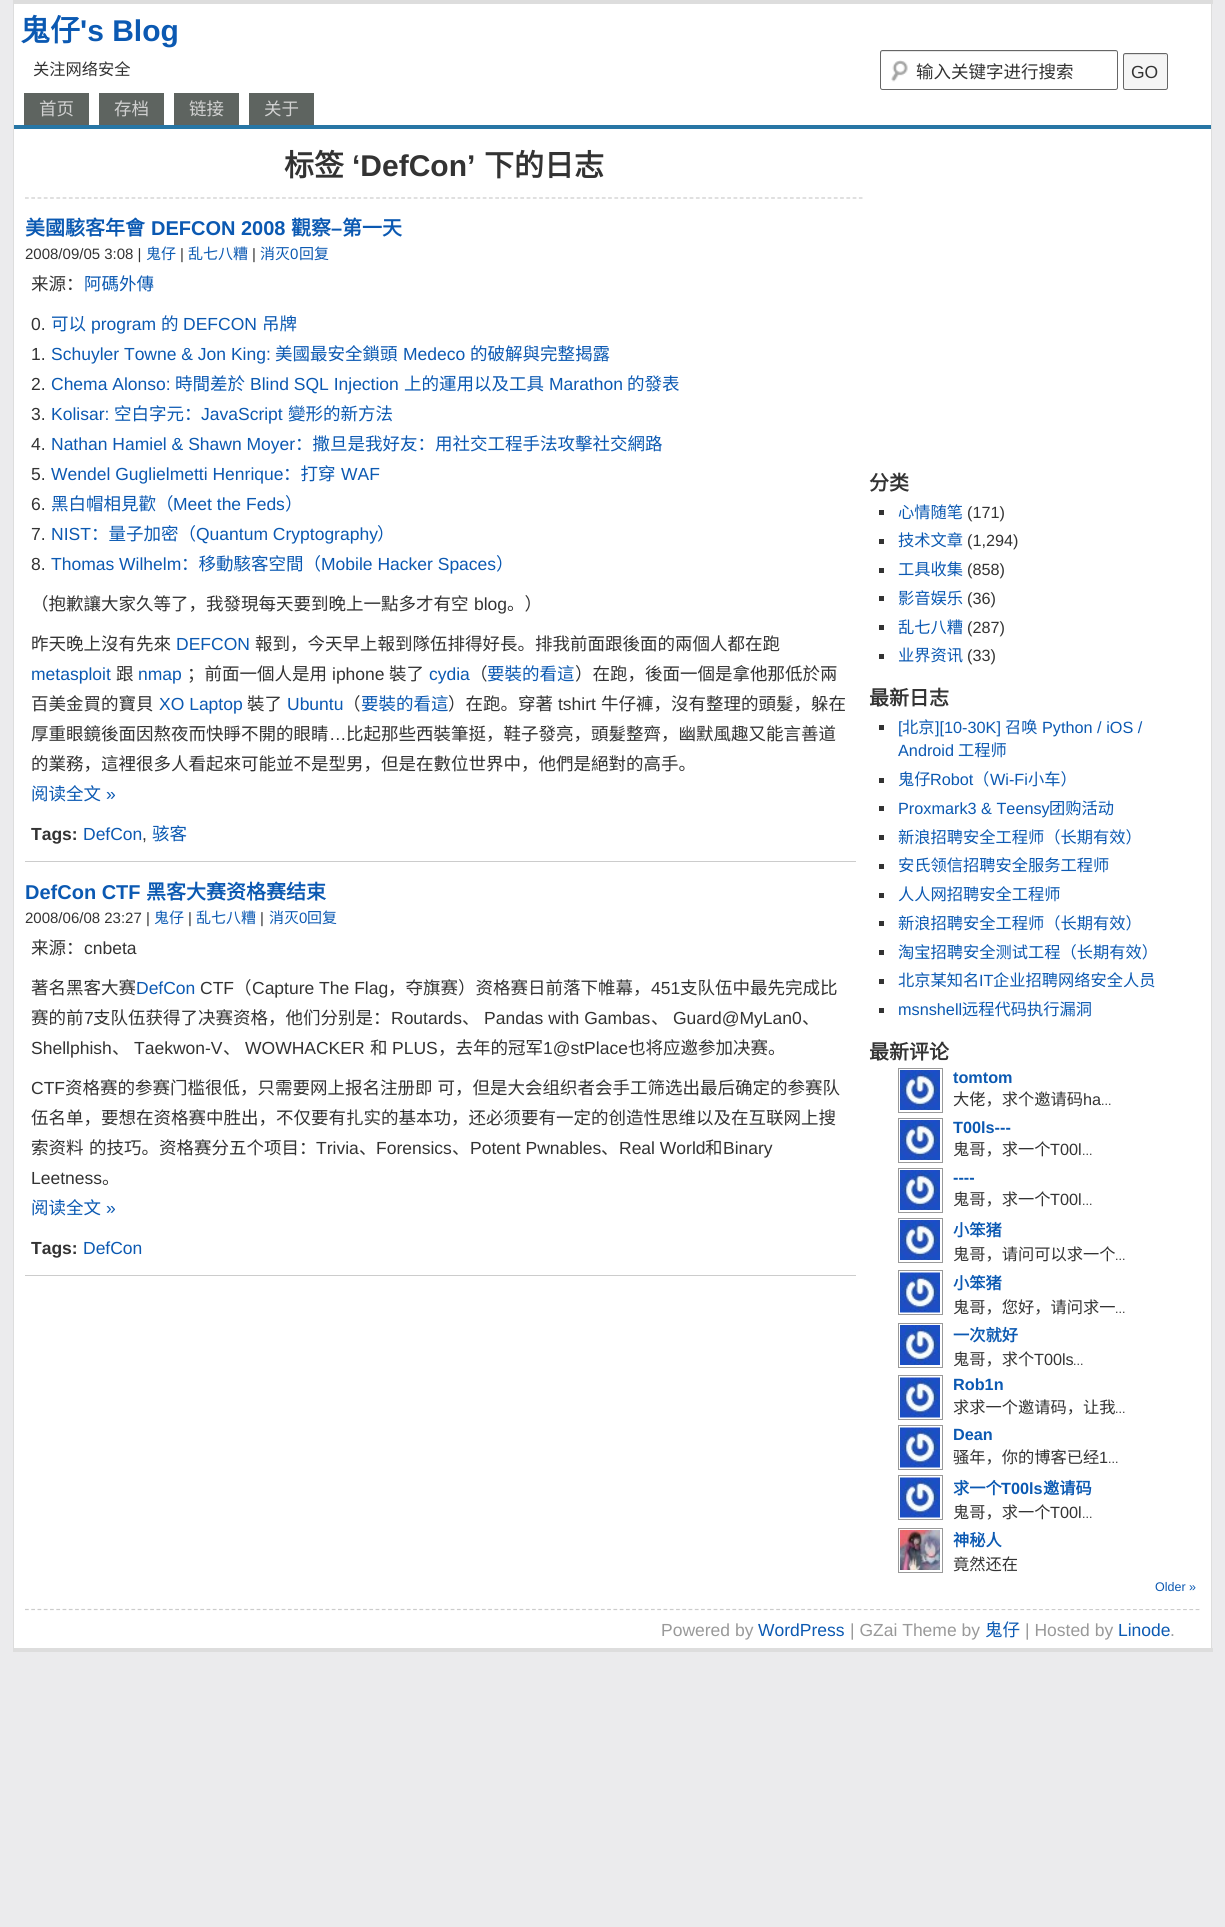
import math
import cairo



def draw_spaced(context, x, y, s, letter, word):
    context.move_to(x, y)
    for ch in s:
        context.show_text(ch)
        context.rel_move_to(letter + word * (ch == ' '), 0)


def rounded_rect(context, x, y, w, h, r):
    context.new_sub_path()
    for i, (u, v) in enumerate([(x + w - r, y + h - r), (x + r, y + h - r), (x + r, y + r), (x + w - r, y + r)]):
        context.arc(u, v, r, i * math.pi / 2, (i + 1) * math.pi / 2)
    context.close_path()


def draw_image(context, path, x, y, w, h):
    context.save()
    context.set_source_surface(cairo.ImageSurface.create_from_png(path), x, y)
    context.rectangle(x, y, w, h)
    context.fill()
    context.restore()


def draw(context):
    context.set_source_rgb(235 / 255, 235 / 255, 237 / 255)
    context.paint()
    context.set_source_rgb(1, 1, 1)
    context.rectangle(14, 4, 1197, 1644)
    context.fill()
    context.set_source_rgb(221 / 255, 221 / 255, 221 / 255)
    context.rectangle(13, 0, 1200, 4)
    context.fill()
    context.rectangle(1211, 0, 1, 1651)
    context.fill()
    context.rectangle(13, 1648, 1200, 4)
    context.fill()
    context.rectangle(13, 0, 1, 1651)
    context.fill()
    draw_image(context, "images/1.png", 891, 60, 17, 22)
    context.set_source_rgb(230 / 255, 230 / 255, 230 / 255)
    context.new_path()
    context.move_to(882, 52)
    context.line_to(1115, 52)
    context.curve_to(1116, 52, 1116, 53, 1116, 54)
    context.line_to(1116, 52)
    context.curve_to(1116, 51, 1116, 51, 1115, 51)
    context.line_to(882, 51)
    context.curve_to(881, 51, 881, 51, 881, 52)
    context.line_to(881, 54)
    context.close_path()
    context.fill()
    rounded_rect(context, 880.5, 50.5, 237, 39, 2)
    context.set_source_rgb(102 / 255, 102 / 255, 102 / 255)
    context.set_line_width(1)
    context.stroke()
    context.set_source_rgb(245 / 255, 245 / 255, 245 / 255)
    rounded_rect(context, 1123, 53, 45, 37, 2.5)
    context.fill()
    context.set_source_rgb(221 / 255, 221 / 255, 221 / 255)
    context.new_path()
    context.move_to(1125, 55)
    context.line_to(1165, 55)
    context.line_to(1166, 56)
    context.curve_to(1166, 52, 1162, 54, 1158, 54)
    context.line_to(1132, 54)
    context.curve_to(1128, 54, 1124, 52, 1124, 56)
    context.close_path()
    context.fill()
    rounded_rect(context, 1123.5, 53.5, 44, 36, 2)
    context.set_source_rgb(102 / 255, 102 / 255, 102 / 255)
    context.stroke()
    context.set_source_rgb(39 / 255, 118 / 255, 165 / 255)
    context.rectangle(14, 125, 1197, 4)
    context.fill()
    context.set_source_rgb(94 / 255, 100 / 255, 96 / 255)
    context.rectangle(24, 93, 65, 32)
    context.fill()
    context.rectangle(99, 93, 65, 32)
    context.fill()
    context.rectangle(174, 93, 65, 32)
    context.fill()
    context.rectangle(249, 93, 65, 32)
    context.fill()
    context.new_path()
    context.move_to(25, 198)
    context.line_to(862.5, 198)
    context.set_source_rgb(204 / 255, 204 / 255, 204 / 255)
    context.set_line_width(1.2)
    context.set_dash([3.75, 2.52])
    context.stroke()
    context.rectangle(25, 861, 831, 1)
    context.fill()
    context.rectangle(25, 1275, 831, 1)
    context.fill()
    context.new_path()
    context.move_to(25, 1609.5)
    context.line_to(1200, 1609.5)
    context.set_dash([3.75, 2.51])
    context.stroke()
    context.set_source_rgb(1, 1, 1)
    context.rectangle(864, 1608, 335, 1)
    context.fill()
    context.set_source_rgb(51 / 255, 51 / 255, 51 / 255)
    context.rectangle(879, 510, 5, 5)
    context.fill()
    context.rectangle(879, 539, 5, 5)
    context.fill()
    context.rectangle(879, 568, 5, 5)
    context.fill()
    context.rectangle(879, 596, 5, 5)
    context.fill()
    context.rectangle(879, 625, 5, 5)
    context.fill()
    context.rectangle(879, 654, 5, 5)
    context.fill()
    context.rectangle(879, 725, 5, 5)
    context.fill()
    context.rectangle(879, 778, 5, 5)
    context.fill()
    context.rectangle(879, 806, 5, 5)
    context.fill()
    context.rectangle(879, 835, 5, 5)
    context.fill()
    context.rectangle(879, 864, 5, 5)
    context.fill()
    context.rectangle(879, 893, 5, 5)
    context.fill()
    context.rectangle(879, 921, 5, 5)
    context.fill()
    context.rectangle(879, 950, 5, 5)
    context.fill()
    context.rectangle(879, 979, 5, 5)
    context.fill()
    context.rectangle(879, 1008, 5, 5)
    context.fill()
    context.rectangle(898.5, 1068.5, 44, 44)
    context.set_source_rgb(153 / 255, 153 / 255, 153 / 255)
    context.set_line_width(1)
    context.set_dash([])
    context.stroke()
    draw_image(context, "images/2.png", 900, 1070, 40, 40)
    context.rectangle(898.5, 1118.5, 44, 44)
    context.stroke()
    draw_image(context, "images/2.png", 900, 1120, 40, 40)
    context.rectangle(898.5, 1168.5, 44, 44)
    context.stroke()
    draw_image(context, "images/3.png", 900, 1170, 40, 40)
    context.rectangle(898.5, 1218.5, 44, 44)
    context.stroke()
    draw_image(context, "images/2.png", 900, 1220, 40, 40)
    context.rectangle(898.5, 1270.5, 44, 44)
    context.stroke()
    draw_image(context, "images/4.png", 900, 1272, 40, 41)
    context.rectangle(898.5, 1323.5, 44, 44)
    context.stroke()
    draw_image(context, "images/2.png", 900, 1325, 40, 40)
    context.rectangle(898.5, 1375.5, 44, 44)
    context.stroke()
    draw_image(context, "images/4.png", 900, 1377, 40, 41)
    context.rectangle(898.5, 1425.5, 44, 44)
    context.stroke()
    draw_image(context, "images/4.png", 900, 1427, 40, 41)
    context.rectangle(898.5, 1475.5, 44, 44)
    context.stroke()
    draw_image(context, "images/4.png", 900, 1477, 40, 41)
    context.rectangle(898.5, 1528.5, 44, 44)
    context.stroke()
    draw_image(context, "images/5.png", 900, 1530, 40, 40)
    context.select_font_face("Noto Sans CJK SC", cairo.FontSlant.NORMAL, cairo.FontWeight.BOLD)
    context.set_font_size(30)
    context.set_source_rgb(11 / 255, 89 / 255, 178 / 255)
    context.move_to(20, 41)
    context.show_text("鬼仔")
    context.select_font_face("Liberation Sans", cairo.FontSlant.NORMAL, cairo.FontWeight.BOLD)
    context.move_to(80, 41)
    context.show_text("'s Blog")
    context.select_font_face("Noto Sans CJK SC")
    context.set_font_size(16.25)
    context.set_source_rgb(51 / 255, 51 / 255, 51 / 255)
    context.move_to(33, 75)
    context.show_text("关注网络安全")
    context.set_font_size(17.5)
    context.move_to(916, 78)
    context.show_text("输入关键字进行搜索")
    context.select_font_face("Liberation Sans")
    context.move_to(1131, 78)
    context.show_text("GO")
    context.select_font_face("Noto Sans CJK SC")
    context.set_source_rgb(209 / 255, 209 / 255, 209 / 255)
    context.move_to(39, 115)
    context.show_text("首页")
    context.move_to(114, 115)
    context.show_text("存档")
    context.move_to(189, 115)
    context.show_text("链接")
    context.move_to(264, 115)
    context.show_text("关于")
    context.select_font_face("Noto Sans CJK SC", cairo.FontSlant.NORMAL, cairo.FontWeight.BOLD)
    context.set_font_size(30)
    context.set_source_rgb(51 / 255, 51 / 255, 51 / 255)
    context.move_to(284, 176)
    context.show_text("标签")
    context.select_font_face("Liberation Sans", cairo.FontSlant.NORMAL, cairo.FontWeight.BOLD)
    context.move_to(352, 176)
    context.show_text("‘DefCon’")
    context.select_font_face("Noto Sans CJK SC", cairo.FontSlant.NORMAL, cairo.FontWeight.BOLD)
    context.move_to(484, 176)
    context.show_text("下的日志")
    context.set_font_size(20)
    context.set_source_rgb(11 / 255, 89 / 255, 178 / 255)
    context.move_to(25, 235)
    context.show_text("美國駭客年會")
    context.select_font_face("Liberation Sans", cairo.FontSlant.NORMAL, cairo.FontWeight.BOLD)
    context.move_to(151, 235)
    context.show_text("DEFCON 2008")
    context.select_font_face("Noto Sans CJK SC", cairo.FontSlant.NORMAL, cairo.FontWeight.BOLD)
    context.move_to(291, 235)
    context.show_text("觀察")
    context.select_font_face("Liberation Sans", cairo.FontSlant.NORMAL, cairo.FontWeight.BOLD)
    context.move_to(331, 235)
    context.show_text("–")
    context.select_font_face("Noto Sans CJK SC", cairo.FontSlant.NORMAL, cairo.FontWeight.BOLD)
    context.move_to(342, 235)
    context.show_text("第一天")
    context.select_font_face("Liberation Sans")
    context.set_font_size(15)
    context.set_source_rgb(51 / 255, 51 / 255, 51 / 255)
    context.move_to(25, 259)
    context.show_text("2008/09/05 3:08 |")
    context.select_font_face("Noto Sans CJK SC")
    context.set_source_rgb(11 / 255, 89 / 255, 178 / 255)
    context.move_to(146, 259)
    context.show_text("鬼仔")
    context.select_font_face("Liberation Sans")
    context.set_source_rgb(51 / 255, 51 / 255, 51 / 255)
    context.move_to(180, 259)
    context.show_text("|")
    context.select_font_face("Noto Sans CJK SC")
    context.set_source_rgb(11 / 255, 89 / 255, 178 / 255)
    context.move_to(188, 259)
    context.show_text("乱七八糟")
    context.select_font_face("Liberation Sans")
    context.set_source_rgb(51 / 255, 51 / 255, 51 / 255)
    context.move_to(252, 259)
    context.show_text("|")
    context.select_font_face("Noto Sans CJK SC")
    context.set_source_rgb(11 / 255, 89 / 255, 178 / 255)
    context.move_to(260, 259)
    context.show_text("消灭")
    context.select_font_face("Liberation Sans")
    context.move_to(290, 259)
    context.show_text("0")
    context.select_font_face("Noto Sans CJK SC")
    context.move_to(299, 259)
    context.show_text("回复")
    context.set_font_size(17.5)
    context.set_source_rgb(51 / 255, 51 / 255, 51 / 255)
    context.move_to(31, 290)
    context.show_text("来源：")
    context.set_source_rgb(11 / 255, 89 / 255, 178 / 255)
    context.move_to(84, 290)
    context.show_text("阿碼外傳")
    context.select_font_face("Liberation Sans")
    context.set_source_rgb(51 / 255, 51 / 255, 51 / 255)
    context.move_to(31, 330)
    context.show_text("0.")
    context.select_font_face("Noto Sans CJK SC")
    context.set_source_rgb(11 / 255, 89 / 255, 178 / 255)
    context.move_to(51, 330)
    context.show_text("可以")
    context.select_font_face("Liberation Sans")
    context.move_to(91, 330)
    context.show_text("program")
    context.select_font_face("Noto Sans CJK SC")
    context.move_to(161, 330)
    context.show_text("的")
    context.select_font_face("Liberation Sans")
    context.move_to(183, 330)
    context.show_text("DEFCON")
    context.select_font_face("Noto Sans CJK SC")
    context.move_to(262, 330)
    context.show_text("吊牌")
    context.select_font_face("Liberation Sans")
    context.set_source_rgb(51 / 255, 51 / 255, 51 / 255)
    context.move_to(31, 360)
    context.show_text("1.")
    context.set_source_rgb(11 / 255, 89 / 255, 178 / 255)
    context.move_to(51, 360)
    context.show_text("Schuyler Towne & Jon King:")
    context.select_font_face("Noto Sans CJK SC")
    context.move_to(275, 360)
    context.show_text("美國最安全鎖頭")
    context.select_font_face("Liberation Sans")
    context.move_to(403, 360)
    context.show_text("Medeco")
    context.select_font_face("Noto Sans CJK SC")
    context.move_to(470, 360)
    context.show_text("的破解與完整揭露")
    context.select_font_face("Liberation Sans")
    context.set_source_rgb(51 / 255, 51 / 255, 51 / 255)
    context.move_to(31, 390)
    context.show_text("2.")
    context.set_source_rgb(11 / 255, 89 / 255, 178 / 255)
    context.move_to(51, 390)
    context.show_text("Chema Alonso:")
    context.select_font_face("Noto Sans CJK SC")
    context.move_to(175, 390)
    context.show_text("時間差於")
    context.select_font_face("Liberation Sans")
    context.move_to(250, 390)
    context.show_text("Blind SQL Injection")
    context.select_font_face("Noto Sans CJK SC")
    context.move_to(404, 390)
    context.show_text("上的運用以及工具")
    context.select_font_face("Liberation Sans")
    context.move_to(549, 390)
    context.show_text("Marathon")
    context.select_font_face("Noto Sans CJK SC")
    context.move_to(627, 390)
    context.show_text("的發表")
    context.select_font_face("Liberation Sans")
    context.set_source_rgb(51 / 255, 51 / 255, 51 / 255)
    context.move_to(31, 420)
    context.show_text("3.")
    context.set_source_rgb(11 / 255, 89 / 255, 178 / 255)
    context.move_to(51, 420)
    context.show_text("Kolisar:")
    context.select_font_face("Noto Sans CJK SC")
    context.move_to(114, 420)
    context.show_text("空白字元：")
    context.select_font_face("Liberation Sans")
    context.move_to(201, 420)
    context.show_text("JavaScript")
    context.select_font_face("Noto Sans CJK SC")
    context.move_to(288, 420)
    context.show_text("變形的新方法")
    context.select_font_face("Liberation Sans")
    context.set_source_rgb(51 / 255, 51 / 255, 51 / 255)
    context.move_to(31, 450)
    context.show_text("4.")
    context.set_source_rgb(11 / 255, 89 / 255, 178 / 255)
    context.move_to(51, 450)
    context.show_text("Nathan Hamiel & Shawn Moyer")
    context.select_font_face("Noto Sans CJK SC")
    context.move_to(295, 450)
    context.show_text("：撒旦是我好友：用社交工程手法攻擊社交網路")
    context.select_font_face("Liberation Sans")
    context.set_source_rgb(51 / 255, 51 / 255, 51 / 255)
    context.move_to(31, 480)
    context.show_text("5.")
    context.set_source_rgb(11 / 255, 89 / 255, 178 / 255)
    context.move_to(51, 480)
    context.show_text("Wendel Guglielmetti Henrique")
    context.select_font_face("Noto Sans CJK SC")
    context.move_to(283, 480)
    context.show_text("：打穿")
    context.select_font_face("Liberation Sans")
    context.move_to(341, 480)
    context.show_text("WAF")
    context.set_source_rgb(51 / 255, 51 / 255, 51 / 255)
    context.move_to(31, 510)
    context.show_text("6.")
    context.select_font_face("Noto Sans CJK SC")
    context.set_source_rgb(11 / 255, 89 / 255, 178 / 255)
    context.move_to(51, 510)
    context.show_text("黑白帽相見歡（")
    context.select_font_face("Liberation Sans")
    context.move_to(173, 510)
    context.show_text("Meet the Feds")
    context.select_font_face("Noto Sans CJK SC")
    context.move_to(285, 510)
    context.show_text("）")
    context.select_font_face("Liberation Sans")
    context.set_source_rgb(51 / 255, 51 / 255, 51 / 255)
    context.move_to(31, 540)
    context.show_text("7.")
    context.set_source_rgb(11 / 255, 89 / 255, 178 / 255)
    context.move_to(51, 540)
    context.show_text("NIST")
    context.select_font_face("Noto Sans CJK SC")
    context.move_to(91, 540)
    context.show_text("：量子加密（")
    context.select_font_face("Liberation Sans")
    context.move_to(196, 540)
    context.show_text("Quantum Cryptography")
    context.select_font_face("Noto Sans CJK SC")
    context.move_to(377, 540)
    context.show_text("）")
    context.select_font_face("Liberation Sans")
    context.set_source_rgb(51 / 255, 51 / 255, 51 / 255)
    context.move_to(31, 570)
    context.show_text("8.")
    context.set_source_rgb(11 / 255, 89 / 255, 178 / 255)
    context.move_to(51, 570)
    context.show_text("Thomas Wilhelm")
    context.select_font_face("Noto Sans CJK SC")
    context.move_to(181, 570)
    context.show_text("：移動駭客空間（")
    context.select_font_face("Liberation Sans")
    context.move_to(321, 570)
    context.show_text("Mobile Hacker Spaces")
    context.select_font_face("Noto Sans CJK SC")
    context.move_to(496, 570)
    context.show_text("）")
    context.set_source_rgb(51 / 255, 51 / 255, 51 / 255)
    context.move_to(31, 610)
    context.show_text("（抱歉讓大家久等了，我發現每天要到晚上一點多才有空")
    context.select_font_face("Liberation Sans")
    context.move_to(474, 610)
    context.show_text("blog")
    context.select_font_face("Noto Sans CJK SC")
    context.move_to(507, 610)
    context.show_text("。）")
    context.move_to(31, 650)
    context.show_text("昨天晚上沒有先來")
    context.select_font_face("Liberation Sans")
    context.set_source_rgb(11 / 255, 89 / 255, 178 / 255)
    context.move_to(176, 650)
    context.show_text("DEFCON")
    context.select_font_face("Noto Sans CJK SC")
    context.set_source_rgb(51 / 255, 51 / 255, 51 / 255)
    context.move_to(255, 650)
    context.show_text("報到，今天早上報到隊伍排得好長。排我前面跟後面的兩個人都在跑")
    context.select_font_face("Liberation Sans")
    context.set_source_rgb(11 / 255, 89 / 255, 178 / 255)
    context.move_to(31, 680)
    context.show_text("metasploit")
    context.select_font_face("Noto Sans CJK SC")
    context.set_source_rgb(51 / 255, 51 / 255, 51 / 255)
    context.move_to(116, 680)
    context.show_text("跟")
    context.select_font_face("Liberation Sans")
    context.set_source_rgb(11 / 255, 89 / 255, 178 / 255)
    context.move_to(138, 680)
    context.show_text("nmap")
    context.select_font_face("Noto Sans CJK SC")
    context.set_source_rgb(51 / 255, 51 / 255, 51 / 255)
    context.move_to(187, 680)
    context.show_text("；前面一個人是用")
    context.select_font_face("Liberation Sans")
    context.move_to(332, 680)
    context.show_text("iphone")
    context.select_font_face("Noto Sans CJK SC")
    context.move_to(389, 680)
    context.show_text("裝了")
    context.select_font_face("Liberation Sans")
    context.set_source_rgb(11 / 255, 89 / 255, 178 / 255)
    context.move_to(429, 680)
    context.show_text("cydia")
    context.select_font_face("Noto Sans CJK SC")
    context.set_source_rgb(51 / 255, 51 / 255, 51 / 255)
    context.move_to(470, 680)
    context.show_text("（")
    context.set_source_rgb(11 / 255, 89 / 255, 178 / 255)
    context.move_to(487, 680)
    context.show_text("要裝的看這")
    context.set_source_rgb(51 / 255, 51 / 255, 51 / 255)
    context.move_to(575, 680)
    context.show_text("）在跑，後面一個是拿他那低於兩")
    context.move_to(31, 710)
    context.show_text("百美金買的寶貝")
    context.select_font_face("Liberation Sans")
    context.set_source_rgb(11 / 255, 89 / 255, 178 / 255)
    context.move_to(159, 710)
    context.show_text("XO Laptop")
    context.select_font_face("Noto Sans CJK SC")
    context.set_source_rgb(51 / 255, 51 / 255, 51 / 255)
    context.move_to(247, 710)
    context.show_text("裝了")
    context.select_font_face("Liberation Sans")
    context.set_source_rgb(11 / 255, 89 / 255, 178 / 255)
    context.move_to(287, 710)
    context.show_text("Ubuntu")
    context.select_font_face("Noto Sans CJK SC")
    context.set_source_rgb(51 / 255, 51 / 255, 51 / 255)
    context.move_to(343, 710)
    context.show_text("（")
    context.set_source_rgb(11 / 255, 89 / 255, 178 / 255)
    context.move_to(361, 710)
    context.show_text("要裝的看這")
    context.set_source_rgb(51 / 255, 51 / 255, 51 / 255)
    context.move_to(448, 710)
    context.show_text("）在跑。穿著")
    context.select_font_face("Liberation Sans")
    context.move_to(558, 710)
    context.show_text("tshirt")
    context.select_font_face("Noto Sans CJK SC")
    context.move_to(601, 710)
    context.show_text("牛仔褲，沒有整理的頭髮，躲在")
    context.move_to(31, 740)
    context.show_text("厚重眼鏡後面因熬夜而快睜不開的眼睛")
    context.select_font_face("Liberation Sans")
    context.move_to(329, 740)
    context.show_text("…")
    context.select_font_face("Noto Sans CJK SC")
    context.move_to(346, 740)
    context.show_text("比起那些西裝筆挺，鞋子發亮，頭髮整齊，幽默風趣又能言善道")
    context.move_to(31, 770)
    context.show_text("的業務，這裡很多人看起來可能並不是型男，但是在數位世界中，他們是絕對的高手。")
    context.set_source_rgb(11 / 255, 89 / 255, 178 / 255)
    context.move_to(31, 800)
    context.show_text("阅读全文")
    context.select_font_face("Liberation Sans")
    context.move_to(106, 800)
    context.show_text("»")
    context.select_font_face("Liberation Sans", cairo.FontSlant.NORMAL, cairo.FontWeight.BOLD)
    context.set_source_rgb(51 / 255, 51 / 255, 51 / 255)
    context.move_to(31, 840)
    context.show_text("Tags:")
    context.select_font_face("Liberation Sans")
    context.set_source_rgb(11 / 255, 89 / 255, 178 / 255)
    context.move_to(83, 840)
    context.show_text("DefCon")
    context.set_source_rgb(51 / 255, 51 / 255, 51 / 255)
    context.move_to(142, 840)
    context.show_text(",")
    context.select_font_face("Noto Sans CJK SC")
    context.set_source_rgb(11 / 255, 89 / 255, 178 / 255)
    context.move_to(152, 840)
    context.show_text("骇客")
    context.select_font_face("Liberation Sans", cairo.FontSlant.NORMAL, cairo.FontWeight.BOLD)
    context.set_font_size(20)
    context.move_to(25, 899)
    context.show_text("DefCon CTF")
    context.select_font_face("Noto Sans CJK SC", cairo.FontSlant.NORMAL, cairo.FontWeight.BOLD)
    context.move_to(146, 899)
    context.show_text("黑客大赛资格赛结束")
    context.select_font_face("Liberation Sans")
    context.set_font_size(15)
    context.set_source_rgb(51 / 255, 51 / 255, 51 / 255)
    context.move_to(25, 923)
    context.show_text("2008/06/08 23:27 |")
    context.select_font_face("Noto Sans CJK SC")
    context.set_source_rgb(11 / 255, 89 / 255, 178 / 255)
    context.move_to(154, 923)
    context.show_text("鬼仔")
    context.select_font_face("Liberation Sans")
    context.set_source_rgb(51 / 255, 51 / 255, 51 / 255)
    context.move_to(188, 923)
    context.show_text("|")
    context.select_font_face("Noto Sans CJK SC")
    context.set_source_rgb(11 / 255, 89 / 255, 178 / 255)
    context.move_to(196, 923)
    context.show_text("乱七八糟")
    context.select_font_face("Liberation Sans")
    context.set_source_rgb(51 / 255, 51 / 255, 51 / 255)
    context.move_to(260, 923)
    context.show_text("|")
    context.select_font_face("Noto Sans CJK SC")
    context.set_source_rgb(11 / 255, 89 / 255, 178 / 255)
    context.move_to(269, 923)
    context.show_text("消灭")
    context.select_font_face("Liberation Sans")
    context.move_to(299, 923)
    context.show_text("0")
    context.select_font_face("Noto Sans CJK SC")
    context.move_to(307, 923)
    context.show_text("回复")
    context.set_font_size(17.5)
    context.set_source_rgb(51 / 255, 51 / 255, 51 / 255)
    context.move_to(31, 954)
    context.show_text("来源：")
    context.select_font_face("Liberation Sans")
    context.move_to(84, 954)
    context.show_text("cnbeta")
    context.select_font_face("Noto Sans CJK SC")
    context.move_to(31, 994)
    context.show_text("著名黑客大赛")
    context.select_font_face("Liberation Sans")
    context.set_source_rgb(11 / 255, 89 / 255, 178 / 255)
    context.move_to(136, 994)
    context.show_text("DefCon")
    context.set_source_rgb(51 / 255, 51 / 255, 51 / 255)
    context.move_to(200, 994)
    context.show_text("CTF")
    context.select_font_face("Noto Sans CJK SC")
    context.move_to(234, 994)
    context.show_text("（")
    context.select_font_face("Liberation Sans")
    context.move_to(252, 994)
    context.show_text("Capture The Flag")
    context.select_font_face("Noto Sans CJK SC")
    context.move_to(388, 994)
    context.show_text("，夺旗赛）资格赛日前落下帷幕，")
    context.select_font_face("Liberation Sans")
    context.move_to(651, 994)
    context.show_text("451")
    context.select_font_face("Noto Sans CJK SC")
    context.move_to(680, 994)
    context.show_text("支队伍中最先完成比")
    context.move_to(31, 1024)
    context.show_text("赛的前")
    context.select_font_face("Liberation Sans")
    context.move_to(84, 1024)
    context.show_text("7")
    context.select_font_face("Noto Sans CJK SC")
    context.move_to(93, 1024)
    context.show_text("支队伍获得了决赛资格，他们分别是：")
    context.select_font_face("Liberation Sans")
    context.move_to(391, 1024)
    context.show_text("Routards")
    context.select_font_face("Noto Sans CJK SC")
    context.move_to(462, 1024)
    context.show_text("、")
    context.select_font_face("Liberation Sans")
    context.move_to(484, 1024)
    context.show_text("Pandas with Gambas")
    context.select_font_face("Noto Sans CJK SC")
    context.move_to(651, 1024)
    context.show_text("、")
    context.select_font_face("Liberation Sans")
    context.move_to(673, 1024)
    context.show_text("Guard@MyLan0")
    context.select_font_face("Noto Sans CJK SC")
    context.move_to(802, 1024)
    context.show_text("、")
    context.select_font_face("Liberation Sans")
    context.move_to(31, 1054)
    context.show_text("Shellphish")
    context.select_font_face("Noto Sans CJK SC")
    context.move_to(112, 1054)
    context.show_text("、")
    context.select_font_face("Liberation Sans")
    context.move_to(134, 1054)
    context.show_text("Taekwon-V")
    context.select_font_face("Noto Sans CJK SC")
    context.move_to(223, 1054)
    context.show_text("、")
    context.select_font_face("Liberation Sans")
    context.move_to(245, 1054)
    context.show_text("WOWHACKER")
    context.select_font_face("Noto Sans CJK SC")
    context.move_to(370, 1054)
    context.show_text("和")
    context.select_font_face("Liberation Sans")
    context.move_to(392, 1054)
    context.show_text("PLUS")
    context.select_font_face("Noto Sans CJK SC")
    context.move_to(438, 1054)
    context.show_text("，去年的冠军")
    context.select_font_face("Liberation Sans")
    context.move_to(543, 1054)
    context.show_text("1@stPlace")
    context.select_font_face("Noto Sans CJK SC")
    context.move_to(628, 1054)
    context.show_text("也将应邀参加决赛。")
    context.select_font_face("Liberation Sans")
    context.move_to(31, 1094)
    context.show_text("CTF")
    context.select_font_face("Noto Sans CJK SC")
    draw_spaced(context, 65, 1094, "资格赛的参赛门槛很低，只需要网上报名注册即 可，但是大会组织者会手工筛选出最后确定的参赛队", 0, 1)
    context.move_to(31, 1124)
    context.show_text("伍名单，要想在资格赛中胜出，不仅要有扎实的基本功，还必须要有一定的创造性思维以及在互联网上搜")
    context.move_to(31, 1154)
    context.show_text("索资料")
    context.move_to(89, 1154)
    context.show_text("的技巧。资格赛分五个项目：")
    context.select_font_face("Liberation Sans")
    context.move_to(316, 1154)
    context.show_text("Trivia")
    context.select_font_face("Noto Sans CJK SC")
    context.move_to(359, 1154)
    context.show_text("、")
    context.select_font_face("Liberation Sans")
    context.move_to(376, 1154)
    context.show_text("Forensics")
    context.select_font_face("Noto Sans CJK SC")
    context.move_to(452, 1154)
    context.show_text("、")
    context.select_font_face("Liberation Sans")
    context.move_to(470, 1154)
    context.show_text("Potent Pwnables")
    context.select_font_face("Noto Sans CJK SC")
    context.move_to(601, 1154)
    context.show_text("、")
    context.select_font_face("Liberation Sans")
    context.move_to(619, 1154)
    context.show_text("Real World")
    context.select_font_face("Noto Sans CJK SC")
    context.move_to(705, 1154)
    context.show_text("和")
    context.select_font_face("Liberation Sans")
    context.move_to(723, 1154)
    context.show_text("Binary")
    context.move_to(31, 1184)
    context.show_text("Leetness")
    context.select_font_face("Noto Sans CJK SC")
    context.move_to(102, 1184)
    context.show_text("。")
    context.set_source_rgb(11 / 255, 89 / 255, 178 / 255)
    context.move_to(31, 1214)
    context.show_text("阅读全文")
    context.select_font_face("Liberation Sans")
    context.move_to(106, 1214)
    context.show_text("»")
    context.select_font_face("Liberation Sans", cairo.FontSlant.NORMAL, cairo.FontWeight.BOLD)
    context.set_source_rgb(51 / 255, 51 / 255, 51 / 255)
    context.move_to(31, 1254)
    context.show_text("Tags:")
    context.select_font_face("Liberation Sans")
    context.set_source_rgb(11 / 255, 89 / 255, 178 / 255)
    context.move_to(83, 1254)
    context.show_text("DefCon")
    context.select_font_face("Noto Sans CJK SC", cairo.FontSlant.NORMAL, cairo.FontWeight.BOLD)
    context.set_font_size(20)
    context.set_source_rgb(51 / 255, 51 / 255, 51 / 255)
    context.move_to(869, 490)
    context.show_text("分类")
    context.select_font_face("Noto Sans CJK SC")
    context.set_font_size(16.25)
    context.set_source_rgb(11 / 255, 89 / 255, 178 / 255)
    context.move_to(898, 518)
    context.show_text("心情随笔")
    context.select_font_face("Liberation Sans")
    context.set_source_rgb(51 / 255, 51 / 255, 51 / 255)
    context.move_to(967, 518)
    context.show_text("(171)")
    context.select_font_face("Noto Sans CJK SC")
    context.set_source_rgb(11 / 255, 89 / 255, 178 / 255)
    context.move_to(898, 546)
    context.show_text("技术文章")
    context.select_font_face("Liberation Sans")
    context.set_source_rgb(51 / 255, 51 / 255, 51 / 255)
    context.move_to(967, 546)
    context.show_text("(1,294)")
    context.select_font_face("Noto Sans CJK SC")
    context.set_source_rgb(11 / 255, 89 / 255, 178 / 255)
    context.move_to(898, 575)
    context.show_text("工具收集")
    context.select_font_face("Liberation Sans")
    context.set_source_rgb(51 / 255, 51 / 255, 51 / 255)
    context.move_to(967, 575)
    context.show_text("(858)")
    context.select_font_face("Noto Sans CJK SC")
    context.set_source_rgb(11 / 255, 89 / 255, 178 / 255)
    context.move_to(898, 604)
    context.show_text("影音娱乐")
    context.select_font_face("Liberation Sans")
    context.set_source_rgb(51 / 255, 51 / 255, 51 / 255)
    context.move_to(967, 604)
    context.show_text("(36)")
    context.select_font_face("Noto Sans CJK SC")
    context.set_source_rgb(11 / 255, 89 / 255, 178 / 255)
    context.move_to(898, 633)
    context.show_text("乱七八糟")
    context.select_font_face("Liberation Sans")
    context.set_source_rgb(51 / 255, 51 / 255, 51 / 255)
    context.move_to(967, 633)
    context.show_text("(287)")
    context.select_font_face("Noto Sans CJK SC")
    context.set_source_rgb(11 / 255, 89 / 255, 178 / 255)
    context.move_to(898, 661)
    context.show_text("业界资讯")
    context.select_font_face("Liberation Sans")
    context.set_source_rgb(51 / 255, 51 / 255, 51 / 255)
    context.move_to(967, 661)
    context.show_text("(33)")
    context.select_font_face("Noto Sans CJK SC", cairo.FontSlant.NORMAL, cairo.FontWeight.BOLD)
    context.set_font_size(20)
    context.move_to(869, 705)
    context.show_text("最新日志")
    context.select_font_face("Liberation Sans")
    context.set_font_size(16.25)
    context.set_source_rgb(11 / 255, 89 / 255, 178 / 255)
    context.move_to(898, 733)
    context.show_text("[")
    context.select_font_face("Noto Sans CJK SC")
    context.move_to(902, 733)
    context.show_text("北京")
    context.select_font_face("Liberation Sans")
    context.move_to(935, 733)
    context.show_text("][10-30K]")
    context.select_font_face("Noto Sans CJK SC")
    context.move_to(1005, 733)
    context.show_text("召唤")
    context.select_font_face("Liberation Sans")
    context.move_to(1042, 733)
    context.show_text("Python / iOS /")
    context.move_to(898, 756)
    context.show_text("Android")
    context.select_font_face("Noto Sans CJK SC")
    context.move_to(958, 756)
    context.show_text("工程师")
    context.move_to(898, 785)
    context.show_text("鬼仔")
    context.select_font_face("Liberation Sans")
    context.move_to(930, 785)
    context.show_text("Robot")
    context.select_font_face("Noto Sans CJK SC")
    context.move_to(973, 785)
    context.show_text("（")
    context.select_font_face("Liberation Sans")
    context.move_to(990, 785)
    context.show_text("Wi-Fi")
    context.select_font_face("Noto Sans CJK SC")
    context.move_to(1028, 785)
    context.show_text("小车）")
    context.select_font_face("Liberation Sans")
    context.move_to(898, 814)
    context.show_text("Proxmark3 & Teensy")
    context.select_font_face("Noto Sans CJK SC")
    context.move_to(1049, 814)
    context.show_text("团购活动")
    context.move_to(898, 843)
    context.show_text("新浪招聘安全工程师（长期有效）")
    context.move_to(898, 871)
    context.show_text("安氏领信招聘安全服务工程师")
    context.move_to(898, 900)
    context.show_text("人人网招聘安全工程师")
    context.move_to(898, 929)
    context.show_text("新浪招聘安全工程师（长期有效）")
    context.move_to(898, 958)
    context.show_text("淘宝招聘安全测试工程（长期有效）")
    context.move_to(898, 986)
    context.show_text("北京某知名")
    context.select_font_face("Liberation Sans")
    context.move_to(979, 986)
    context.show_text("IT")
    context.select_font_face("Noto Sans CJK SC")
    context.move_to(993, 986)
    context.show_text("企业招聘网络安全人员")
    context.select_font_face("Liberation Sans")
    context.move_to(898, 1015)
    context.show_text("msnshell")
    context.select_font_face("Noto Sans CJK SC")
    context.move_to(962, 1015)
    context.show_text("远程代码执行漏洞")
    context.select_font_face("Noto Sans CJK SC", cairo.FontSlant.NORMAL, cairo.FontWeight.BOLD)
    context.set_font_size(20)
    context.set_source_rgb(51 / 255, 51 / 255, 51 / 255)
    context.move_to(869, 1059)
    context.show_text("最新评论")
    context.select_font_face("Liberation Sans", cairo.FontSlant.NORMAL, cairo.FontWeight.BOLD)
    context.set_font_size(16.25)
    context.set_source_rgb(11 / 255, 89 / 255, 178 / 255)
    context.move_to(953, 1083)
    context.show_text("tomtom")
    context.select_font_face("Noto Sans CJK SC")
    context.set_source_rgb(51 / 255, 51 / 255, 51 / 255)
    context.move_to(953, 1105)
    context.show_text("大佬，求个邀请码")
    context.select_font_face("Liberation Sans")
    context.move_to(1083, 1105)
    context.show_text("ha")
    context.set_font_size(12.5)
    context.move_to(1101, 1105)
    context.show_text("...")
    context.select_font_face("Liberation Sans", cairo.FontSlant.NORMAL, cairo.FontWeight.BOLD)
    context.set_font_size(16.25)
    context.set_source_rgb(11 / 255, 89 / 255, 178 / 255)
    context.move_to(953, 1133)
    context.show_text("T00ls---")
    context.select_font_face("Noto Sans CJK SC")
    context.set_source_rgb(51 / 255, 51 / 255, 51 / 255)
    context.move_to(953, 1155)
    context.show_text("鬼哥，求一个")
    context.select_font_face("Liberation Sans")
    context.move_to(1050, 1155)
    context.show_text("T00l")
    context.set_font_size(12.5)
    context.move_to(1082, 1155)
    context.show_text("...")
    context.select_font_face("Liberation Sans", cairo.FontSlant.NORMAL, cairo.FontWeight.BOLD)
    context.set_font_size(16.25)
    context.set_source_rgb(11 / 255, 89 / 255, 178 / 255)
    context.move_to(953, 1183)
    context.show_text("----")
    context.select_font_face("Noto Sans CJK SC")
    context.set_source_rgb(51 / 255, 51 / 255, 51 / 255)
    context.move_to(953, 1205)
    context.show_text("鬼哥，求一个")
    context.select_font_face("Liberation Sans")
    context.move_to(1050, 1205)
    context.show_text("T00l")
    context.set_font_size(12.5)
    context.move_to(1082, 1205)
    context.show_text("...")
    context.select_font_face("Noto Sans CJK SC", cairo.FontSlant.NORMAL, cairo.FontWeight.BOLD)
    context.set_font_size(16.25)
    context.set_source_rgb(11 / 255, 89 / 255, 178 / 255)
    context.move_to(953, 1236)
    context.show_text("小笨猪")
    context.select_font_face("Noto Sans CJK SC")
    context.set_source_rgb(51 / 255, 51 / 255, 51 / 255)
    context.move_to(953, 1260)
    context.show_text("鬼哥，请问可以求一个")
    context.select_font_face("Liberation Sans")
    context.set_font_size(12.5)
    context.move_to(1115, 1260)
    context.show_text("...")
    context.select_font_face("Noto Sans CJK SC", cairo.FontSlant.NORMAL, cairo.FontWeight.BOLD)
    context.set_font_size(16.25)
    context.set_source_rgb(11 / 255, 89 / 255, 178 / 255)
    context.move_to(953, 1289)
    context.show_text("小笨猪")
    context.select_font_face("Noto Sans CJK SC")
    context.set_source_rgb(51 / 255, 51 / 255, 51 / 255)
    context.move_to(953, 1313)
    context.show_text("鬼哥，您好，请问求一")
    context.select_font_face("Liberation Sans")
    context.set_font_size(12.5)
    context.move_to(1115, 1313)
    context.show_text("...")
    context.select_font_face("Noto Sans CJK SC", cairo.FontSlant.NORMAL, cairo.FontWeight.BOLD)
    context.set_font_size(16.25)
    context.set_source_rgb(11 / 255, 89 / 255, 178 / 255)
    context.move_to(953, 1341)
    context.show_text("一次就好")
    context.select_font_face("Noto Sans CJK SC")
    context.set_source_rgb(51 / 255, 51 / 255, 51 / 255)
    context.move_to(953, 1365)
    context.show_text("鬼哥，求个")
    context.select_font_face("Liberation Sans")
    context.move_to(1034, 1365)
    context.show_text("T00ls")
    context.set_font_size(12.5)
    context.move_to(1073, 1365)
    context.show_text("...")
    context.select_font_face("Liberation Sans", cairo.FontSlant.NORMAL, cairo.FontWeight.BOLD)
    context.set_font_size(16.25)
    context.set_source_rgb(11 / 255, 89 / 255, 178 / 255)
    context.move_to(953, 1390)
    context.show_text("Rob1n")
    context.select_font_face("Noto Sans CJK SC")
    context.set_source_rgb(51 / 255, 51 / 255, 51 / 255)
    context.move_to(953, 1413)
    context.show_text("求求一个邀请码，让我")
    context.select_font_face("Liberation Sans")
    context.set_font_size(12.5)
    context.move_to(1115, 1413)
    context.show_text("...")
    context.select_font_face("Liberation Sans", cairo.FontSlant.NORMAL, cairo.FontWeight.BOLD)
    context.set_font_size(16.25)
    context.set_source_rgb(11 / 255, 89 / 255, 178 / 255)
    context.move_to(953, 1440)
    context.show_text("Dean")
    context.select_font_face("Noto Sans CJK SC")
    context.set_source_rgb(51 / 255, 51 / 255, 51 / 255)
    context.move_to(953, 1463)
    context.show_text("骚年，你的博客已经")
    context.select_font_face("Liberation Sans")
    context.move_to(1099, 1463)
    context.show_text("1")
    context.set_font_size(12.5)
    context.move_to(1108, 1463)
    context.show_text("...")
    context.select_font_face("Noto Sans CJK SC", cairo.FontSlant.NORMAL, cairo.FontWeight.BOLD)
    context.set_font_size(16.25)
    context.set_source_rgb(11 / 255, 89 / 255, 178 / 255)
    context.move_to(953, 1494)
    context.show_text("求一个")
    context.select_font_face("Liberation Sans", cairo.FontSlant.NORMAL, cairo.FontWeight.BOLD)
    context.move_to(1001, 1494)
    context.show_text("T00ls")
    context.select_font_face("Noto Sans CJK SC", cairo.FontSlant.NORMAL, cairo.FontWeight.BOLD)
    context.move_to(1043, 1494)
    context.show_text("邀请码")
    context.select_font_face("Noto Sans CJK SC")
    context.set_source_rgb(51 / 255, 51 / 255, 51 / 255)
    context.move_to(953, 1518)
    context.show_text("鬼哥，求一个")
    context.select_font_face("Liberation Sans")
    context.move_to(1050, 1518)
    context.show_text("T00l")
    context.set_font_size(12.5)
    context.move_to(1082, 1518)
    context.show_text("...")
    context.select_font_face("Noto Sans CJK SC", cairo.FontSlant.NORMAL, cairo.FontWeight.BOLD)
    context.set_font_size(16.25)
    context.set_source_rgb(11 / 255, 89 / 255, 178 / 255)
    context.move_to(953, 1546)
    context.show_text("神秘人")
    context.select_font_face("Noto Sans CJK SC")
    context.set_source_rgb(51 / 255, 51 / 255, 51 / 255)
    context.move_to(953, 1570)
    context.show_text("竟然还在")
    context.select_font_face("Liberation Sans")
    context.set_font_size(12.5)
    context.set_source_rgb(11 / 255, 89 / 255, 178 / 255)
    context.move_to(1155, 1591)
    context.show_text("Older »")
    context.set_font_size(17.5)
    context.set_source_rgb(153 / 255, 153 / 255, 153 / 255)
    context.move_to(661, 1636)
    context.show_text("Powered by")
    context.set_source_rgb(11 / 255, 89 / 255, 178 / 255)
    context.move_to(758, 1636)
    context.show_text("WordPress")
    context.set_source_rgb(153 / 255, 153 / 255, 153 / 255)
    context.move_to(850, 1636)
    context.show_text("| GZai Theme by")
    context.select_font_face("Noto Sans CJK SC")
    context.set_source_rgb(11 / 255, 89 / 255, 178 / 255)
    context.move_to(985, 1636)
    context.show_text("鬼仔")
    context.select_font_face("Liberation Sans")
    context.set_source_rgb(153 / 255, 153 / 255, 153 / 255)
    context.move_to(1025, 1636)
    context.show_text("| Hosted by")
    context.set_source_rgb(11 / 255, 89 / 255, 178 / 255)
    context.move_to(1118, 1636)
    context.show_text("Linode")
    context.set_source_rgb(153 / 255, 153 / 255, 153 / 255)
    context.move_to(1170, 1636)
    context.show_text(".")


surface = cairo.ImageSurface(cairo.Format.RGB24, 1225, 1927)
context = cairo.Context(surface)
options = cairo.FontOptions()
options.set_hint_metrics(cairo.HintMetrics.OFF)
options.set_hint_style(cairo.HintStyle.NONE)
context.set_font_options(options)
context.set_miter_limit(4)
draw(context)
surface.write_to_png("out.png")
